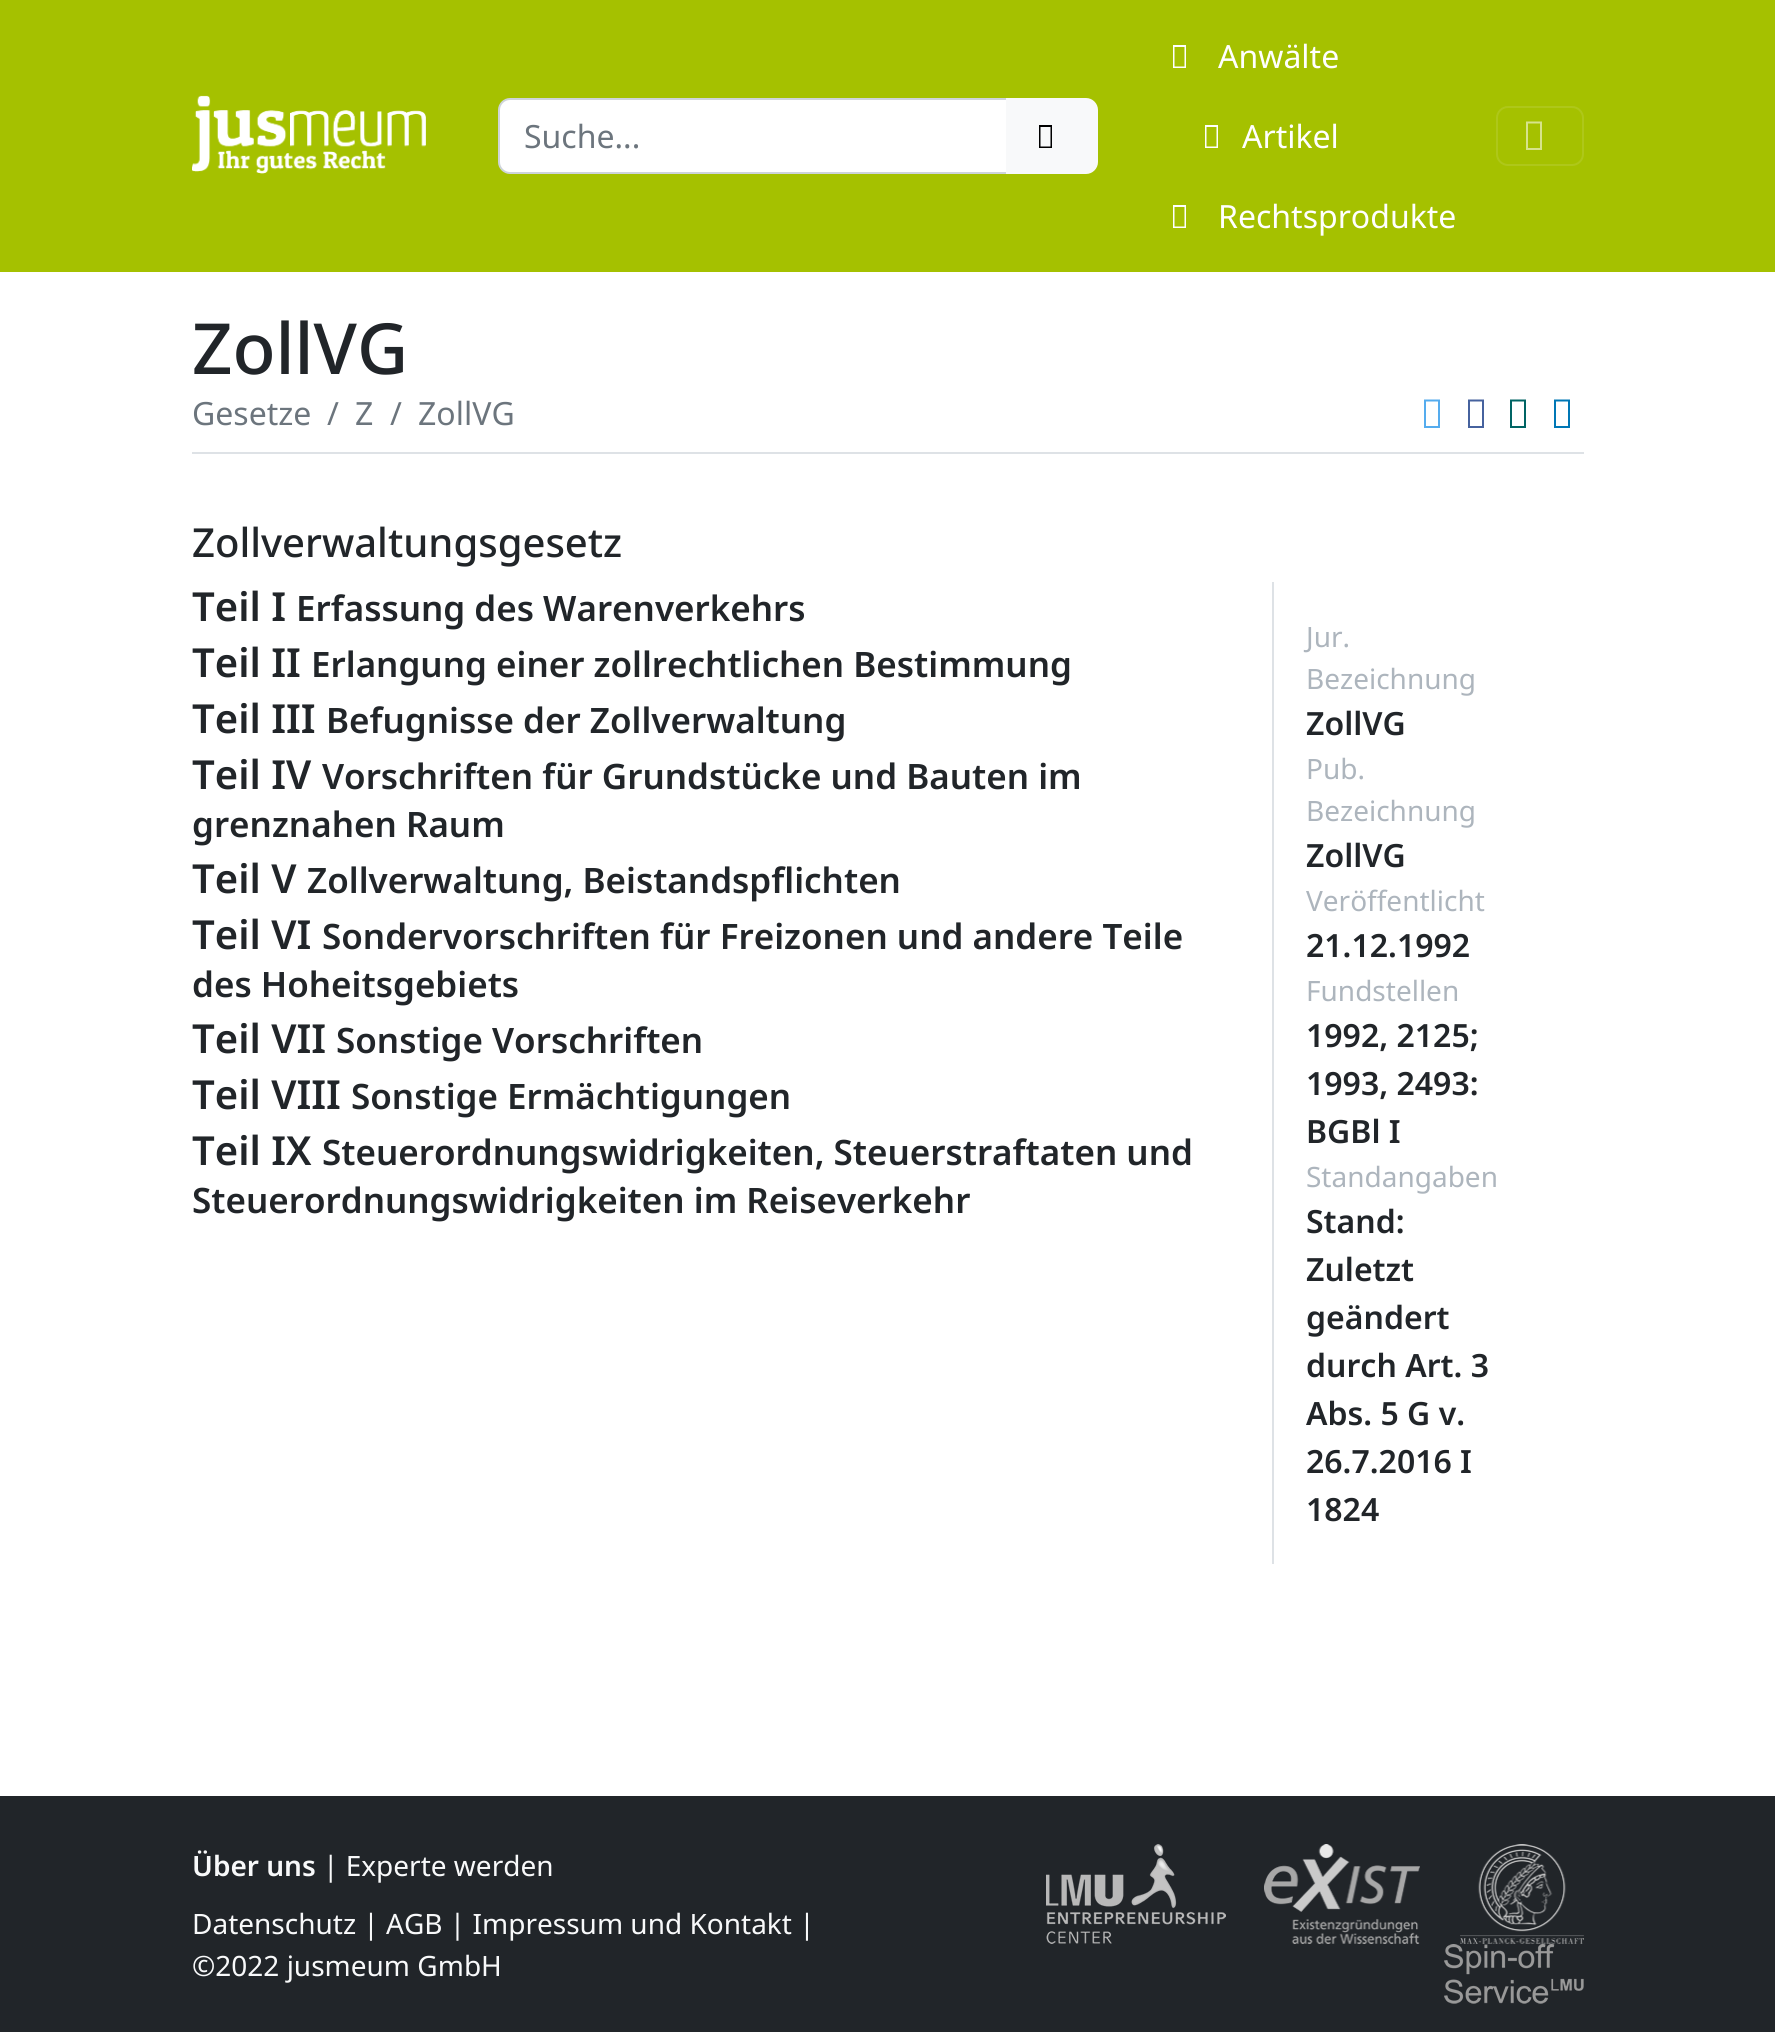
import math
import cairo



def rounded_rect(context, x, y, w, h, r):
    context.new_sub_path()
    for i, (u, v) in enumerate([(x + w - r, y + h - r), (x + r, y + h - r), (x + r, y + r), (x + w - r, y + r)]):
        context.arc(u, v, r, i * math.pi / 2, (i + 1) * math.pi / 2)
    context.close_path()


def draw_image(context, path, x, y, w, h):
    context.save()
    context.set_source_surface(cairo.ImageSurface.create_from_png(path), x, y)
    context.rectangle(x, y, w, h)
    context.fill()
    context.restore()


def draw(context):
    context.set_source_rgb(1, 1, 1)
    context.paint()
    context.set_source_rgb(165 / 255, 193 / 255, 0)
    context.rectangle(0, 0, 1775, 272)
    context.fill()
    draw_image(context, "images/1.png", 192, 95, 234, 79)
    context.set_source_rgb(1, 1, 1)
    context.new_path()
    context.move_to(510, 99)
    context.line_to(1007, 99)
    context.line_to(1007, 173)
    context.line_to(510, 173)
    context.curve_to(504, 173, 499, 168, 499, 162)
    context.line_to(499, 110)
    context.curve_to(499, 104, 504, 99, 510, 99)
    context.close_path()
    context.fill_preserve()
    context.set_source_rgb(206 / 255, 212 / 255, 218 / 255)
    context.stroke()
    context.set_source_rgb(248 / 255, 249 / 255, 250 / 255)
    context.new_path()
    context.move_to(1007, 99)
    context.line_to(1086, 99)
    context.curve_to(1092, 99, 1097, 104, 1097, 110)
    context.line_to(1097, 162)
    context.curve_to(1097, 168, 1092, 173, 1086, 173)
    context.line_to(1007, 173)
    context.close_path()
    context.fill_preserve()
    context.stroke()
    context.set_source_rgb(0, 0, 0)
    context.new_path()
    context.move_to(1039, 148)
    context.line_to(1039, 125)
    context.line_to(1052, 125)
    context.line_to(1052, 148)
    context.close_path()
    context.move_to(1040.5, 146.5)
    context.line_to(1050.5, 146.5)
    context.line_to(1050.5, 127)
    context.line_to(1040.5, 127)
    context.close_path()
    context.fill()
    context.set_source_rgb(1, 1, 1)
    context.new_path()
    context.move_to(1173, 68)
    context.line_to(1173, 45)
    context.line_to(1186, 45)
    context.line_to(1186, 68)
    context.close_path()
    context.move_to(1174.5, 66.5)
    context.line_to(1184.5, 66.5)
    context.line_to(1184.5, 47)
    context.line_to(1174.5, 47)
    context.close_path()
    context.fill()
    context.new_path()
    context.move_to(1205, 148)
    context.line_to(1205, 125)
    context.line_to(1218, 125)
    context.line_to(1218, 148)
    context.close_path()
    context.move_to(1206.5, 146.5)
    context.line_to(1216.5, 146.5)
    context.line_to(1216.5, 127)
    context.line_to(1206.5, 127)
    context.close_path()
    context.fill()
    context.new_path()
    context.move_to(1173, 228)
    context.line_to(1173, 205)
    context.line_to(1186, 205)
    context.line_to(1186, 228)
    context.close_path()
    context.move_to(1174.5, 226.5)
    context.line_to(1184.5, 226.5)
    context.line_to(1184.5, 207)
    context.line_to(1174.5, 207)
    context.close_path()
    context.fill()
    rounded_rect(context, 1497, 107, 86, 58, 11)
    context.set_source_rgb(174 / 255, 199 / 255, 26 / 255)
    context.stroke()
    context.set_source_rgb(215 / 255, 227 / 255, 140 / 255)
    context.new_path()
    context.move_to(1526, 150)
    context.line_to(1526, 121.5)
    context.line_to(1542, 121.5)
    context.line_to(1542, 150)
    context.close_path()
    context.move_to(1528, 148)
    context.line_to(1540, 148)
    context.line_to(1540, 123.5)
    context.line_to(1528, 123.5)
    context.close_path()
    context.fill()
    context.set_source_rgb(222 / 255, 226 / 255, 230 / 255)
    context.rectangle(192, 452, 1392, 2)
    context.fill()
    context.set_source_rgb(85 / 255, 172 / 255, 238 / 255)
    context.new_path()
    context.move_to(1424, 428)
    context.line_to(1424, 399.5)
    context.line_to(1440, 399.5)
    context.line_to(1440, 428)
    context.close_path()
    context.move_to(1426, 426)
    context.line_to(1438, 426)
    context.line_to(1438, 401.5)
    context.line_to(1426, 401.5)
    context.close_path()
    context.fill()
    context.set_source_rgb(70 / 255, 98 / 255, 158 / 255)
    context.new_path()
    context.move_to(1468, 428)
    context.line_to(1468, 399.5)
    context.line_to(1484, 399.5)
    context.line_to(1484, 428)
    context.close_path()
    context.move_to(1470, 426)
    context.line_to(1482, 426)
    context.line_to(1482, 401.5)
    context.line_to(1470, 401.5)
    context.close_path()
    context.fill()
    context.set_source_rgb(0, 100 / 255, 100 / 255)
    context.new_path()
    context.move_to(1510, 428)
    context.line_to(1510, 399.5)
    context.line_to(1526, 399.5)
    context.line_to(1526, 428)
    context.close_path()
    context.move_to(1512, 426)
    context.line_to(1524, 426)
    context.line_to(1524, 401.5)
    context.line_to(1512, 401.5)
    context.close_path()
    context.fill()
    context.set_source_rgb(0, 119 / 255, 181 / 255)
    context.new_path()
    context.move_to(1554, 428)
    context.line_to(1554, 399.5)
    context.line_to(1570, 399.5)
    context.line_to(1570, 428)
    context.close_path()
    context.move_to(1556, 426)
    context.line_to(1568, 426)
    context.line_to(1568, 401.5)
    context.line_to(1556, 401.5)
    context.close_path()
    context.fill()
    context.set_source_rgb(222 / 255, 226 / 255, 230 / 255)
    context.rectangle(1272, 582, 2, 982)
    context.fill()
    context.set_source_rgb(33 / 255, 37 / 255, 41 / 255)
    context.rectangle(0, 1796, 1775, 236)
    context.fill()
    draw_image(context, "images/2.png", 1046, 1844, 180, 100)
    draw_image(context, "images/3.png", 1264, 1844, 156, 100)
    draw_image(context, "images/4.png", 1460, 1844, 124, 100)
    draw_image(context, "images/5.png", 1444, 1944, 140, 60)
    context.select_font_face("Noto Sans")
    context.set_font_size(32)
    context.set_source_rgb(108 / 255, 117 / 255, 125 / 255)
    context.move_to(524, 148)
    context.show_text("Suche...")
    context.set_source_rgb(1, 1, 1)
    context.move_to(1218, 68)
    context.show_text("Anwälte")
    context.move_to(1242, 148)
    context.show_text("Artikel")
    context.move_to(1218, 228)
    context.show_text("Rechtsprodukte")
    context.select_font_face("Noto Sans Medium")
    context.set_font_size(70.5)
    context.set_source_rgb(33 / 255, 37 / 255, 41 / 255)
    context.move_to(192, 374)
    context.show_text("ZollVG")
    context.select_font_face("Noto Sans")
    context.set_font_size(32)
    context.set_source_rgb(108 / 255, 117 / 255, 125 / 255)
    context.move_to(192, 425)
    context.show_text("Gesetze")
    context.move_to(327, 425)
    context.show_text("/")
    context.move_to(355, 425)
    context.show_text("Z")
    context.move_to(390, 425)
    context.show_text("/")
    context.move_to(418, 425)
    context.show_text("ZollVG")
    context.select_font_face("Noto Sans Medium")
    context.set_font_size(40)
    context.set_source_rgb(33 / 255, 37 / 255, 41 / 255)
    context.move_to(192, 557)
    context.show_text("Zollverwaltungsgesetz")
    context.select_font_face("Noto Sans SemiBold")
    context.move_to(192, 621)
    context.show_text("Teil I")
    context.set_font_size(35)
    context.move_to(296, 621)
    context.show_text("Erfassung des Warenverkehrs")
    context.set_font_size(40)
    context.move_to(192, 677)
    context.show_text("Teil II")
    context.set_font_size(35)
    context.move_to(311, 677)
    context.show_text("Erlangung einer zollrechtlichen Bestimmung")
    context.set_font_size(40)
    context.move_to(192, 733)
    context.show_text("Teil III")
    context.set_font_size(35)
    context.move_to(326, 733)
    context.show_text("Befugnisse der Zollverwaltung")
    context.set_font_size(40)
    context.move_to(192, 789)
    context.show_text("Teil IV")
    context.set_font_size(35)
    context.move_to(322, 789)
    context.show_text("Vorschriften für Grundstücke und Bauten im")
    context.move_to(192, 837)
    context.show_text("grenznahen Raum")
    context.set_font_size(40)
    context.move_to(192, 893)
    context.show_text("Teil V")
    context.set_font_size(35)
    context.move_to(307, 893)
    context.show_text("Zollverwaltung, Beistandspflichten")
    context.set_font_size(40)
    context.move_to(192, 949)
    context.show_text("Teil VI")
    context.set_font_size(35)
    context.move_to(322, 949)
    context.show_text("Sondervorschriften für Freizonen und andere Teile")
    context.move_to(192, 997)
    context.show_text("des Hoheitsgebiets")
    context.set_font_size(40)
    context.move_to(192, 1053)
    context.show_text("Teil VII")
    context.set_font_size(35)
    context.move_to(336, 1053)
    context.show_text("Sonstige Vorschriften")
    context.set_font_size(40)
    context.move_to(192, 1109)
    context.show_text("Teil VIII")
    context.set_font_size(35)
    context.move_to(351, 1109)
    context.show_text("Sonstige Ermächtigungen")
    context.set_font_size(40)
    context.move_to(192, 1165)
    context.show_text("Teil IX")
    context.set_font_size(35)
    context.move_to(322, 1165)
    context.show_text("Steuerordnungswidrigkeiten, Steuerstraftaten und")
    context.move_to(192, 1213)
    context.show_text("Steuerordnungswidrigkeiten im Reiseverkehr")
    context.select_font_face("Noto Sans")
    context.set_font_size(28)
    context.set_source_rgb(173 / 255, 181 / 255, 189 / 255)
    context.move_to(1306, 647)
    context.show_text("Jur.")
    context.move_to(1306, 689)
    context.show_text("Bezeichnung")
    context.select_font_face("Noto Sans SemiBold")
    context.set_font_size(32)
    context.set_source_rgb(33 / 255, 37 / 255, 41 / 255)
    context.move_to(1306, 735)
    context.show_text("ZollVG")
    context.select_font_face("Noto Sans")
    context.set_font_size(28)
    context.set_source_rgb(173 / 255, 181 / 255, 189 / 255)
    context.move_to(1306, 779)
    context.show_text("Pub.")
    context.move_to(1306, 821)
    context.show_text("Bezeichnung")
    context.select_font_face("Noto Sans SemiBold")
    context.set_font_size(32)
    context.set_source_rgb(33 / 255, 37 / 255, 41 / 255)
    context.move_to(1306, 867)
    context.show_text("ZollVG")
    context.select_font_face("Noto Sans")
    context.set_font_size(28)
    context.set_source_rgb(173 / 255, 181 / 255, 189 / 255)
    context.move_to(1306, 911)
    context.show_text("Veröffentlicht")
    context.select_font_face("Noto Sans SemiBold")
    context.set_font_size(32)
    context.set_source_rgb(33 / 255, 37 / 255, 41 / 255)
    context.move_to(1306, 957)
    context.show_text("21.12.1992")
    context.select_font_face("Noto Sans")
    context.set_font_size(28)
    context.set_source_rgb(173 / 255, 181 / 255, 189 / 255)
    context.move_to(1306, 1001)
    context.show_text("Fundstellen")
    context.select_font_face("Noto Sans SemiBold")
    context.set_font_size(32)
    context.set_source_rgb(33 / 255, 37 / 255, 41 / 255)
    context.move_to(1306, 1047)
    context.show_text("1992, 2125;")
    context.move_to(1306, 1095)
    context.show_text("1993, 2493:")
    context.move_to(1306, 1143)
    context.show_text("BGBl I")
    context.select_font_face("Noto Sans")
    context.set_font_size(28)
    context.set_source_rgb(173 / 255, 181 / 255, 189 / 255)
    context.move_to(1306, 1187)
    context.show_text("Standangaben")
    context.select_font_face("Noto Sans SemiBold")
    context.set_font_size(32)
    context.set_source_rgb(33 / 255, 37 / 255, 41 / 255)
    context.move_to(1306, 1233)
    context.show_text("Stand:")
    context.move_to(1306, 1281)
    context.show_text("Zuletzt")
    context.move_to(1306, 1329)
    context.show_text("geändert")
    context.move_to(1306, 1377)
    context.show_text("durch Art. 3")
    context.move_to(1306, 1425)
    context.show_text("Abs. 5 G v.")
    context.move_to(1306, 1473)
    context.show_text("26.7.2016 I")
    context.move_to(1306, 1521)
    context.show_text("1824")
    context.set_font_size(28)
    context.set_source_rgb(248 / 255, 249 / 255, 250 / 255)
    context.move_to(192, 1876)
    context.show_text("Über uns")
    context.select_font_face("Noto Sans")
    context.move_to(323, 1876)
    context.show_text("| Experte werden")
    context.move_to(192, 1934)
    context.show_text("Datenschutz | AGB | Impressum und Kontakt |")
    context.move_to(192, 1976)
    context.show_text("©2022 jusmeum GmbH")


surface = cairo.ImageSurface(cairo.Format.RGB24, 1775, 2032)
context = cairo.Context(surface)
options = cairo.FontOptions()
options.set_hint_metrics(cairo.HintMetrics.OFF)
options.set_hint_style(cairo.HintStyle.NONE)
context.set_font_options(options)
context.set_miter_limit(4)
draw(context)
surface.write_to_png("out.png")
